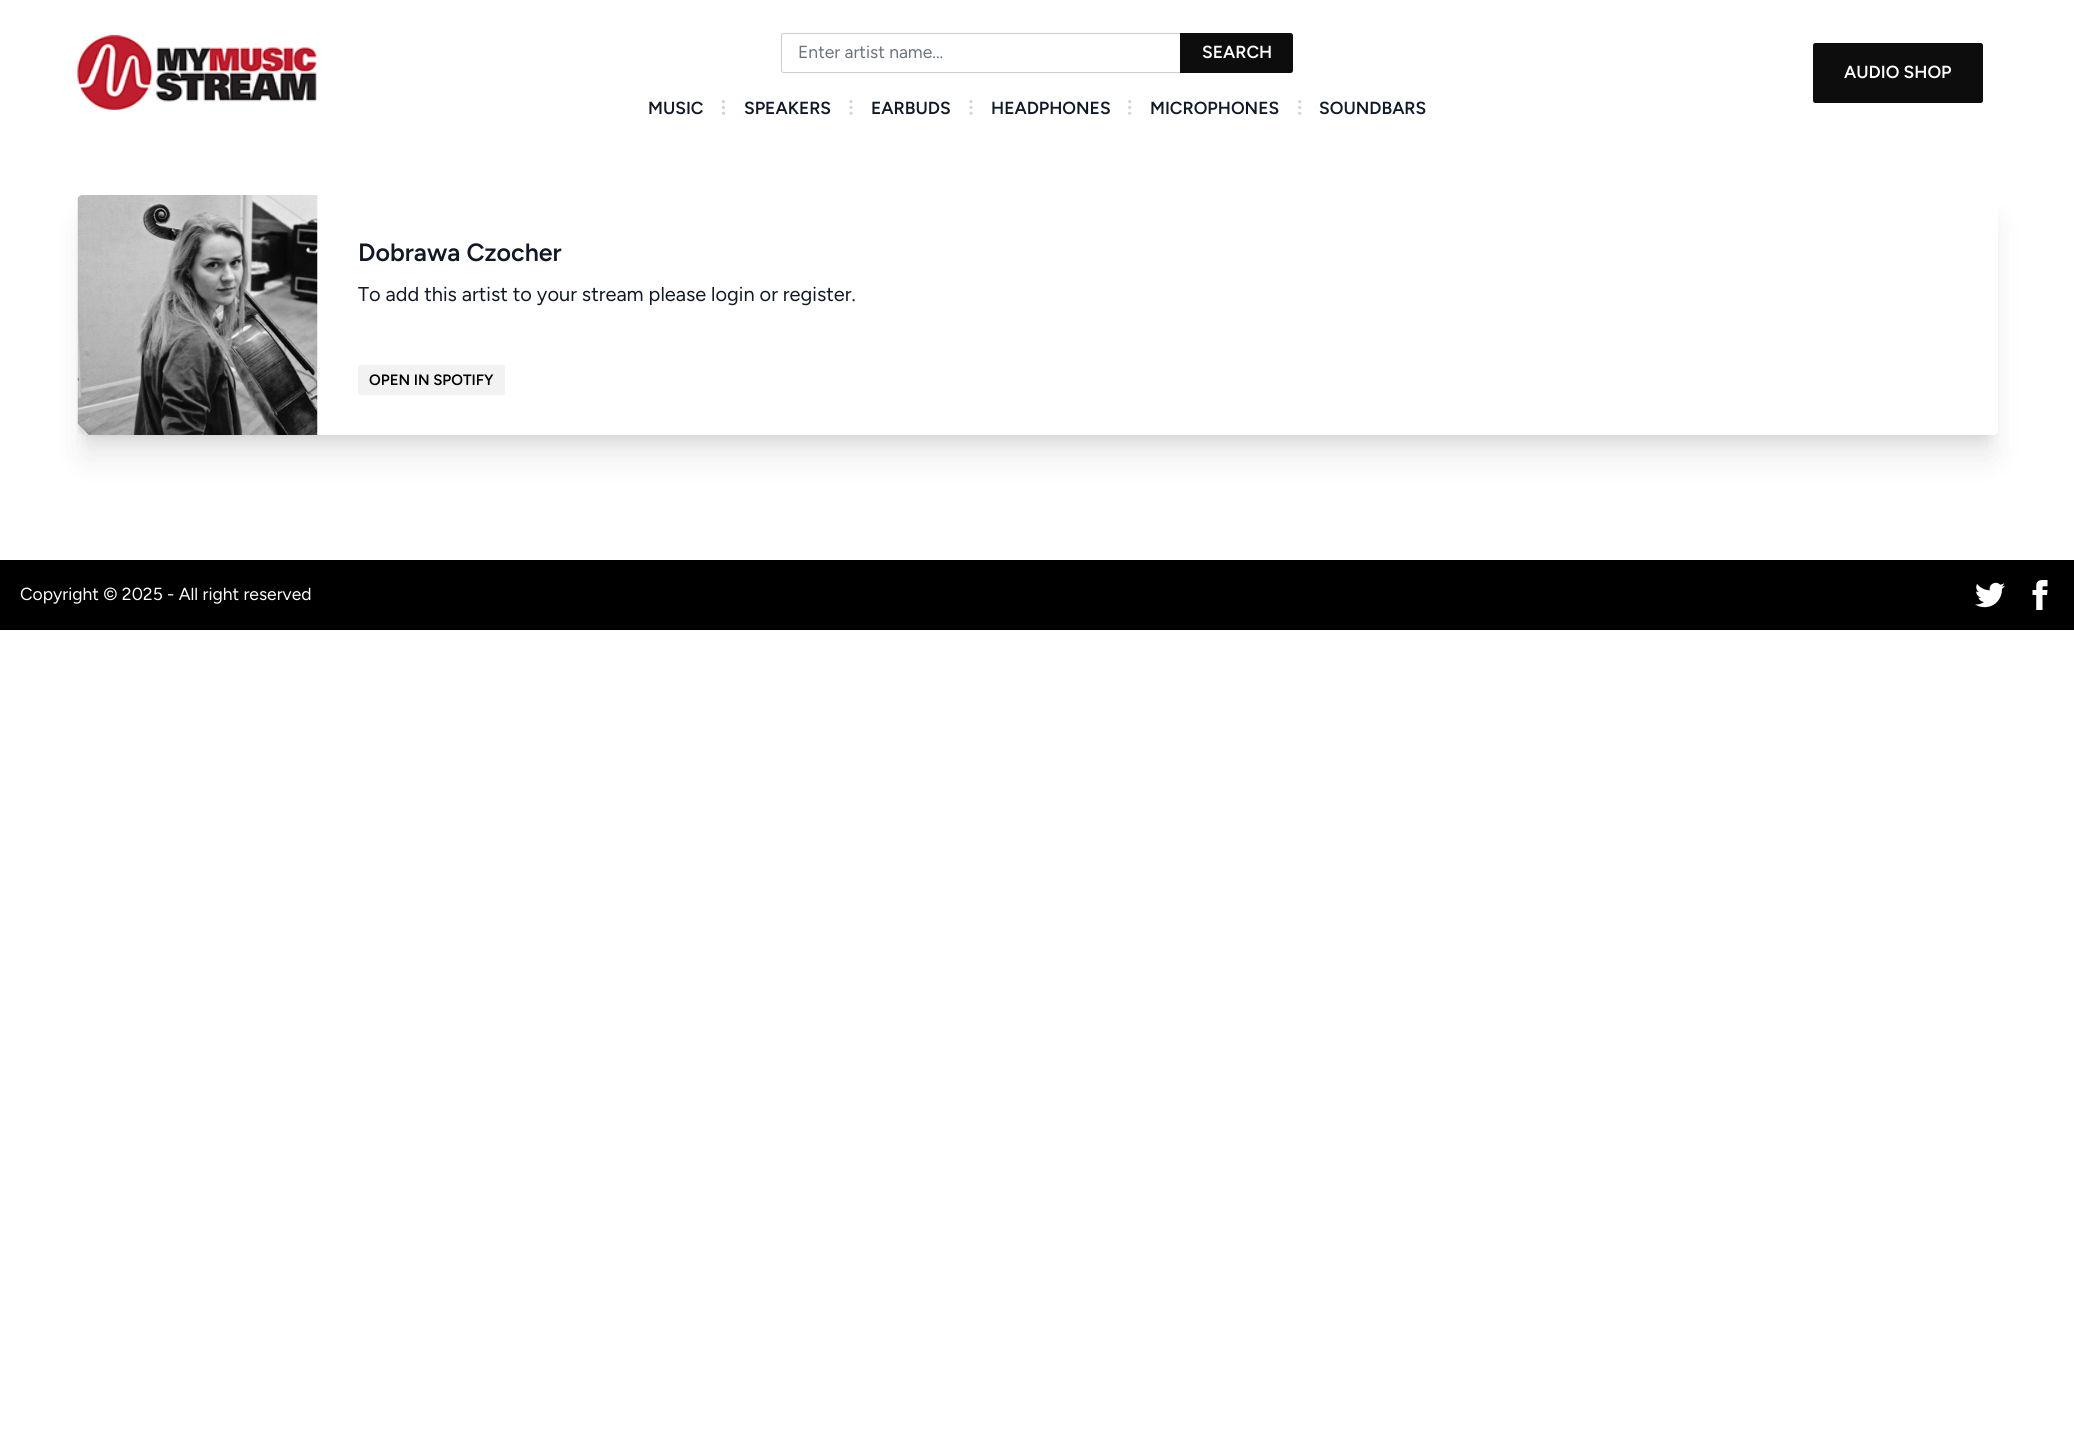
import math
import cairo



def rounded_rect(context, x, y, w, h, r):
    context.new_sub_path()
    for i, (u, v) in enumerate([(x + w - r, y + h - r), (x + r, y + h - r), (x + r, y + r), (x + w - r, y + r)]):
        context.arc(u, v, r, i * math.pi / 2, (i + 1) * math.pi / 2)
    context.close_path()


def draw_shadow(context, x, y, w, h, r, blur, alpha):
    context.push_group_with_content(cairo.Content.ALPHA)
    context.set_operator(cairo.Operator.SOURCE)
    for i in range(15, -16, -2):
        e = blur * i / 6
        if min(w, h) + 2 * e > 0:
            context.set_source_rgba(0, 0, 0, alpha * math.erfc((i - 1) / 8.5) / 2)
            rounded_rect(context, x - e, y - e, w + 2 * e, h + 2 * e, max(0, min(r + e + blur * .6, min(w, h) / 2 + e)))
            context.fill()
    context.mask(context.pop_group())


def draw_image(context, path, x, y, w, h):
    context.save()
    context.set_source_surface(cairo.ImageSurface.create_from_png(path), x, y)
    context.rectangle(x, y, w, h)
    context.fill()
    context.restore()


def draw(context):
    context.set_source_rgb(1, 1, 1)
    context.paint()
    draw_image(context, "images/1.png", 77, 35, 240, 75)
    context.new_path()
    context.move_to(783.5, 33.5)
    context.line_to(1180.5, 33.5)
    context.line_to(1180.5, 72.5)
    context.line_to(783.5, 72.5)
    context.curve_to(782.5, 72.5, 781.5, 71.5, 781.5, 70.5)
    context.line_to(781.5, 35.5)
    context.curve_to(781.5, 34.5, 782.5, 33.5, 783.5, 33.5)
    context.close_path()
    context.set_source_rgb(204 / 255, 204 / 255, 204 / 255)
    context.set_line_width(1)
    context.stroke()
    context.set_source_rgb(13 / 255, 13 / 255, 13 / 255)
    context.new_path()
    context.move_to(1180.5, 33.5)
    context.line_to(1290.5, 33.5)
    context.curve_to(1291.5, 33.5, 1292.5, 34.5, 1292.5, 35.5)
    context.line_to(1292.5, 70.5)
    context.curve_to(1292.5, 71.5, 1291.5, 72.5, 1290.5, 72.5)
    context.line_to(1180.5, 72.5)
    context.close_path()
    context.fill_preserve()
    context.stroke()
    rounded_rect(context, 1813.5, 43.5, 169, 59, 2)
    context.fill_preserve()
    context.stroke()
    draw_image(context, "images/2.png", 721, 100, 4, 15)
    draw_image(context, "images/3.png", 849, 100, 4, 15)
    draw_image(context, "images/3.png", 969, 100, 4, 15)
    draw_image(context, "images/4.png", 1128, 100, 4, 15)
    draw_image(context, "images/4.png", 1298, 100, 4, 15)
    context.set_source_rgb(0, 0, 0)
    draw_shadow(context, 85, 213, 1905, 225, 0, 6, 0.1)
    draw_shadow(context, 84, 226, 1907, 228, 0, 15.5, 0.1)
    context.set_source_rgb(1, 1, 1)
    rounded_rect(context, 78, 195, 1920, 240, 5)
    context.fill()
    draw_image(context, "images/5.png", 77, 195, 241, 240)
    context.set_source_rgb(242 / 255, 242 / 255, 242 / 255)
    rounded_rect(context, 358, 365, 147, 30, 2.5)
    context.fill()
    context.set_source_rgb(0, 0, 0)
    context.rectangle(0, 560, 2074, 70)
    context.fill()
    draw_image(context, "images/6.png", 1975, 582, 30, 26)
    draw_image(context, "images/7.png", 2032, 580, 16, 30)
    context.select_font_face("Figtree Light")
    context.set_font_size(17.5)
    context.set_source_rgb(107 / 255, 114 / 255, 128 / 255)
    context.move_to(798, 58)
    context.show_text("Enter artist name...")
    context.select_font_face("Figtree SemiBold")
    context.set_source_rgb(1, 1, 1)
    context.move_to(1202, 58)
    context.show_text("SEARCH")
    context.move_to(1844, 78)
    context.show_text("AUDIO SHOP")
    context.set_source_rgb(17 / 255, 24 / 255, 39 / 255)
    context.move_to(648, 114)
    context.show_text("MUSIC")
    context.move_to(744, 114)
    context.show_text("SPEAKERS")
    context.move_to(871, 114)
    context.show_text("EARBUDS")
    context.move_to(991, 114)
    context.show_text("HEADPHONES")
    context.move_to(1150, 114)
    context.show_text("MICROPHONES")
    context.move_to(1319, 114)
    context.show_text("SOUNDBARS")
    context.set_font_size(25)
    context.move_to(358, 261)
    context.show_text("Dobrawa Czocher")
    context.select_font_face("Figtree Light")
    context.set_font_size(20)
    context.move_to(358, 301)
    context.show_text("To add this artist to your stream please login or register.")
    context.select_font_face("Figtree SemiBold")
    context.set_font_size(15)
    context.set_source_rgb(0, 0, 0)
    context.move_to(369, 385)
    context.show_text("OPEN IN SPOTIFY")
    context.select_font_face("Figtree Light")
    context.set_font_size(17.5)
    context.set_source_rgb(1, 1, 1)
    context.move_to(20, 600)
    context.show_text("Copyright © 2025 - All right reserved")


surface = cairo.ImageSurface(cairo.Format.RGB24, 2074, 1435)
context = cairo.Context(surface)
options = cairo.FontOptions()
options.set_hint_metrics(cairo.HintMetrics.OFF)
options.set_hint_style(cairo.HintStyle.NONE)
context.set_font_options(options)
context.set_miter_limit(4)
draw(context)
surface.write_to_png("out.png")
